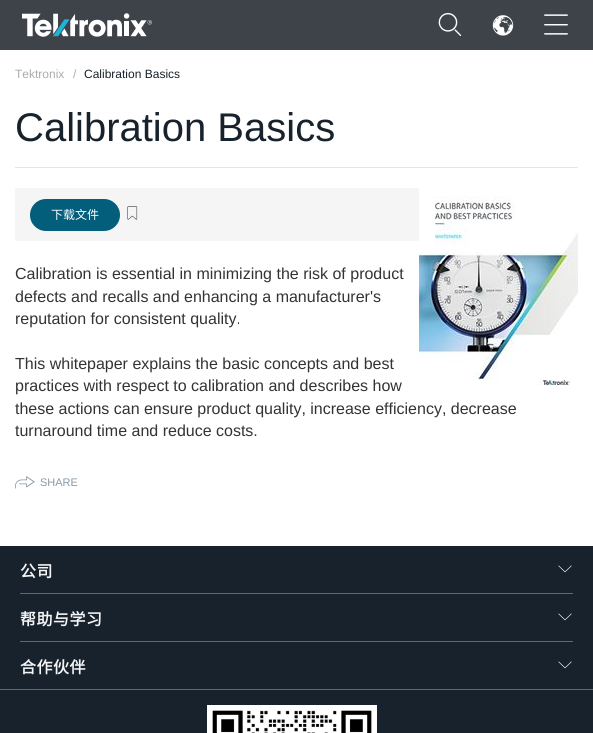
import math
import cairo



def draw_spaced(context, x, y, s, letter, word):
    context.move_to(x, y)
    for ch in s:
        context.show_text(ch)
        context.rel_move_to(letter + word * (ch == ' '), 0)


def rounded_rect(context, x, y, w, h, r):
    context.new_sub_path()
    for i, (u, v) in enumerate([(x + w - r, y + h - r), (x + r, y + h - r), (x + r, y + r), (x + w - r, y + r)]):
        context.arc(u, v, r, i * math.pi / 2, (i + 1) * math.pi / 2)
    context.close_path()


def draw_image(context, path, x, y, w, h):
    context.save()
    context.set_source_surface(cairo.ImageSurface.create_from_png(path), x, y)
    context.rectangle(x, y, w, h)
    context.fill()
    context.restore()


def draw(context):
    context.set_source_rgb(1, 1, 1)
    context.paint()
    context.set_source_rgb(62 / 255, 67 / 255, 74 / 255)
    context.rectangle(0, 0, 593, 50)
    context.fill()
    draw_image(context, "images/1.png", 22, 13, 130, 24)
    draw_image(context, "images/2.png", 438, 13, 24, 23)
    draw_image(context, "images/3.png", 492, 15, 22, 21)
    draw_image(context, "images/4.png", 544, 14, 24, 21)
    context.set_source_rgb(229 / 255, 229 / 255, 229 / 255)
    context.rectangle(15, 167, 563, 1)
    context.fill()
    context.set_source_rgb(245 / 255, 245 / 255, 245 / 255)
    context.rectangle(15, 188, 404, 53)
    context.fill()
    context.set_source_rgb(3 / 255, 94 / 255, 124 / 255)
    rounded_rect(context, 30, 199, 90, 32, 16)
    context.fill()
    draw_image(context, "images/5.png", 127, 206, 11, 14)
    draw_image(context, "images/6.png", 419, 188, 159, 197)
    draw_image(context, "images/7.png", 15, 476, 20, 13)
    context.set_source_rgb(23 / 255, 34 / 255, 44 / 255)
    context.rectangle(0, 546, 593, 187)
    context.fill()
    draw_image(context, "images/8.png", 558, 565, 14, 8)
    context.set_source_rgb(94 / 255, 105 / 255, 117 / 255)
    context.rectangle(20, 593, 553, 1)
    context.fill()
    draw_image(context, "images/8.png", 558, 613, 14, 8)
    context.rectangle(20, 641, 553, 1)
    context.fill()
    draw_image(context, "images/8.png", 558, 661, 14, 8)
    context.rectangle(0, 689, 593, 1)
    context.fill()
    draw_image(context, "images/9.png", 207, 705, 170, 28)
    context.select_font_face("Liberation Sans")
    context.set_font_size(12)
    context.set_source_rgb(171 / 255, 171 / 255, 171 / 255)
    context.move_to(15, 78)
    context.show_text("Tektronix")
    context.move_to(73, 78)
    context.show_text("/")
    context.set_source_rgb(23 / 255, 34 / 255, 44 / 255)
    context.move_to(84, 78)
    context.show_text("Calibration Basics")
    context.set_font_size(40)
    context.move_to(15, 141)
    context.show_text("Calibration Basics")
    context.select_font_face("Noto Sans CJK SC")
    context.set_font_size(12)
    context.set_source_rgb(1, 1, 1)
    context.move_to(51, 219)
    context.show_text("下载文件")
    context.select_font_face("Liberation Sans")
    context.set_font_size(16)
    context.set_source_rgb(51 / 255, 51 / 255, 51 / 255)
    context.move_to(15, 279)
    context.show_text("Calibration is essential in minimizing the risk of product")
    context.move_to(15, 302)
    context.show_text("defects and recalls and enhancing a manufacturer's")
    context.move_to(15, 324)
    context.show_text("reputation for consistent quality.")
    context.move_to(15, 369)
    context.show_text("This whitepaper explains the basic concepts and best")
    context.move_to(15, 391)
    context.show_text("practices with respect to calibration and describes how")
    context.move_to(15, 414)
    context.show_text("these actions can ensure product quality, increase efficiency, decrease")
    context.move_to(15, 436)
    context.show_text("turnaround time and reduce costs.")
    context.set_font_size(11)
    context.set_source_rgb(136 / 255, 153 / 255, 168 / 255)
    context.move_to(40, 486)
    context.show_text("SHARE")
    context.select_font_face("Noto Sans CJK SC", cairo.FontSlant.NORMAL, cairo.FontWeight.BOLD)
    context.set_font_size(16)
    context.set_source_rgb(245 / 255, 245 / 255, 245 / 255)
    draw_spaced(context, 20, 577, "公司", 0.5, 0)
    draw_spaced(context, 20, 625, "帮助与学习", 0.5, 0)
    draw_spaced(context, 20, 673, "合作伙伴", 0.5, 0)


surface = cairo.ImageSurface(cairo.Format.RGB24, 593, 733)
context = cairo.Context(surface)
options = cairo.FontOptions()
options.set_hint_metrics(cairo.HintMetrics.OFF)
options.set_hint_style(cairo.HintStyle.NONE)
context.set_font_options(options)
context.set_miter_limit(4)
draw(context)
surface.write_to_png("out.png")
